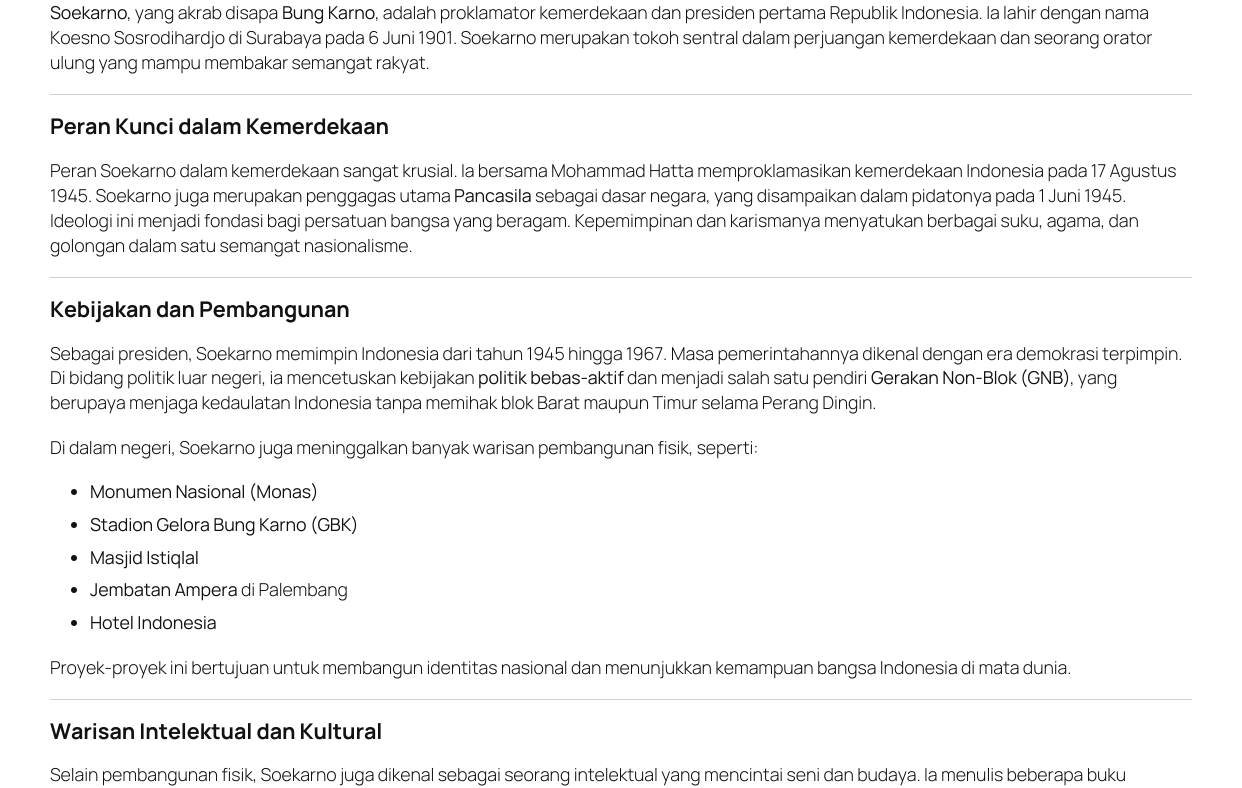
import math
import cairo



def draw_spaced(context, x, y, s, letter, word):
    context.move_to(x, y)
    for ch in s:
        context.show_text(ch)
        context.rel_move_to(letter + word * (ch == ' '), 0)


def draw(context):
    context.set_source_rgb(1, 1, 1)
    context.paint()
    context.set_source_rgb(207 / 255, 207 / 255, 207 / 255)
    context.rectangle(50, 94, 1142, 1)
    context.fill()
    context.rectangle(50, 277, 1142, 1)
    context.fill()
    context.set_source_rgb(17 / 255, 17 / 255, 17 / 255)
    context.arc(74, 492, 3, 0, 2 * math.pi)
    context.fill()
    context.arc(74, 525, 3, 0, 2 * math.pi)
    context.fill()
    context.arc(74, 558, 3, 0, 2 * math.pi)
    context.fill()
    context.arc(74, 590, 3, 0, 2 * math.pi)
    context.fill()
    context.arc(74, 623, 3, 0, 2 * math.pi)
    context.fill()
    context.set_source_rgb(207 / 255, 207 / 255, 207 / 255)
    context.rectangle(50, 699, 1142, 1)
    context.fill()
    context.select_font_face("Manrope")
    context.set_font_size(17.8)
    context.set_source_rgb(17 / 255, 17 / 255, 17 / 255)
    draw_spaced(context, 50, 19, "Soekarno", -0.1, 0)
    context.select_font_face("Manrope Light")
    draw_spaced(context, 127, 19, ", yang akrab disapa", -0.1, 0)
    context.select_font_face("Manrope")
    draw_spaced(context, 282, 19, "Bung Karno", -0.1, 0)
    context.select_font_face("Manrope Light")
    draw_spaced(context, 375, 19, ", adalah proklamator kemerdekaan dan presiden pertama Republik Indonesia. Ia lahir dengan nama", -0.1, 0)
    draw_spaced(context, 50, 44, "Koesno Sosrodihardjo di Surabaya pada 6 Juni 1901. Soekarno merupakan tokoh sentral dalam perjuangan kemerdekaan dan seorang orator", -0.1, 0)
    draw_spaced(context, 50, 69, "ulung yang mampu membakar semangat rakyat.", -0.1, 0)
    context.select_font_face("Manrope", cairo.FontSlant.NORMAL, cairo.FontWeight.BOLD)
    context.set_font_size(21.6)
    draw_spaced(context, 50, 134, "Peran Kunci dalam Kemerdekaan", -0.1, 0)
    context.select_font_face("Manrope Light")
    context.set_font_size(17.8)
    draw_spaced(context, 50, 177, "Peran Soekarno dalam kemerdekaan sangat krusial. Ia bersama Mohammad Hatta memproklamasikan kemerdekaan Indonesia pada 17 Agustus", -0.1, 0)
    draw_spaced(context, 50, 202, "1945. Soekarno juga merupakan penggagas utama", -0.1, 0)
    context.select_font_face("Manrope")
    draw_spaced(context, 454, 202, "Pancasila", -0.1, 0)
    context.select_font_face("Manrope Light")
    draw_spaced(context, 535, 202, "sebagai dasar negara, yang disampaikan dalam pidatonya pada 1 Juni 1945.", -0.1, 0)
    draw_spaced(context, 50, 227, "Ideologi ini menjadi fondasi bagi persatuan bangsa yang beragam. Kepemimpinan dan karismanya menyatukan berbagai suku, agama, dan", -0.1, 0)
    draw_spaced(context, 50, 252, "golongan dalam satu semangat nasionalisme.", -0.1, 0)
    context.select_font_face("Manrope", cairo.FontSlant.NORMAL, cairo.FontWeight.BOLD)
    context.set_font_size(21.6)
    draw_spaced(context, 50, 317, "Kebijakan dan Pembangunan", -0.1, 0)
    context.select_font_face("Manrope Light")
    context.set_font_size(17.8)
    draw_spaced(context, 50, 360, "Sebagai presiden, Soekarno memimpin Indonesia dari tahun 1945 hingga 1967. Masa pemerintahannya dikenal dengan era demokrasi terpimpin.", -0.1, 0)
    draw_spaced(context, 50, 384, "Di bidang politik luar negeri, ia mencetuskan kebijakan", -0.1, 0)
    context.select_font_face("Manrope")
    draw_spaced(context, 478, 384, "politik bebas-aktif", -0.1, 0)
    context.select_font_face("Manrope Light")
    draw_spaced(context, 627, 384, "dan menjadi salah satu pendiri", -0.1, 0)
    context.select_font_face("Manrope")
    draw_spaced(context, 871, 384, "Gerakan Non-Blok (GNB)", -0.1, 0)
    context.select_font_face("Manrope Light")
    draw_spaced(context, 1070, 384, ", yang", -0.1, 0)
    draw_spaced(context, 50, 409, "berupaya menjaga kedaulatan Indonesia tanpa memihak blok Barat maupun Timur selama Perang Dingin.", -0.1, 0)
    draw_spaced(context, 50, 454, "Di dalam negeri, Soekarno juga meninggalkan banyak warisan pembangunan fisik, seperti:", -0.1, 0)
    context.select_font_face("Manrope")
    draw_spaced(context, 90, 498, "Monumen Nasional (Monas)", -0.1, 0)
    draw_spaced(context, 90, 531, "Stadion Gelora Bung Karno (GBK)", -0.1, 0)
    draw_spaced(context, 90, 564, "Masjid Istiqlal", -0.1, 0)
    draw_spaced(context, 90, 596, "Jembatan Ampera", -0.1, 0)
    context.select_font_face("Manrope Light")
    draw_spaced(context, 241, 596, "di Palembang", -0.1, 0)
    context.select_font_face("Manrope")
    draw_spaced(context, 90, 629, "Hotel Indonesia", -0.1, 0)
    context.select_font_face("Manrope Light")
    draw_spaced(context, 50, 674, "Proyek-proyek ini bertujuan untuk membangun identitas nasional dan menunjukkan kemampuan bangsa Indonesia di mata dunia.", -0.1, 0)
    context.select_font_face("Manrope", cairo.FontSlant.NORMAL, cairo.FontWeight.BOLD)
    context.set_font_size(21.6)
    draw_spaced(context, 50, 739, "Warisan Intelektual dan Kultural", -0.1, 0)
    context.select_font_face("Manrope Light")
    context.set_font_size(17.8)
    draw_spaced(context, 50, 781, "Selain pembangunan fisik, Soekarno juga dikenal sebagai seorang intelektual yang mencintai seni dan budaya. Ia menulis beberapa buku", -0.1, 0)


surface = cairo.ImageSurface(cairo.Format.RGB24, 1242, 788)
context = cairo.Context(surface)
options = cairo.FontOptions()
options.set_hint_metrics(cairo.HintMetrics.OFF)
options.set_hint_style(cairo.HintStyle.NONE)
context.set_font_options(options)
context.set_miter_limit(4)
draw(context)
surface.write_to_png("out.png")
